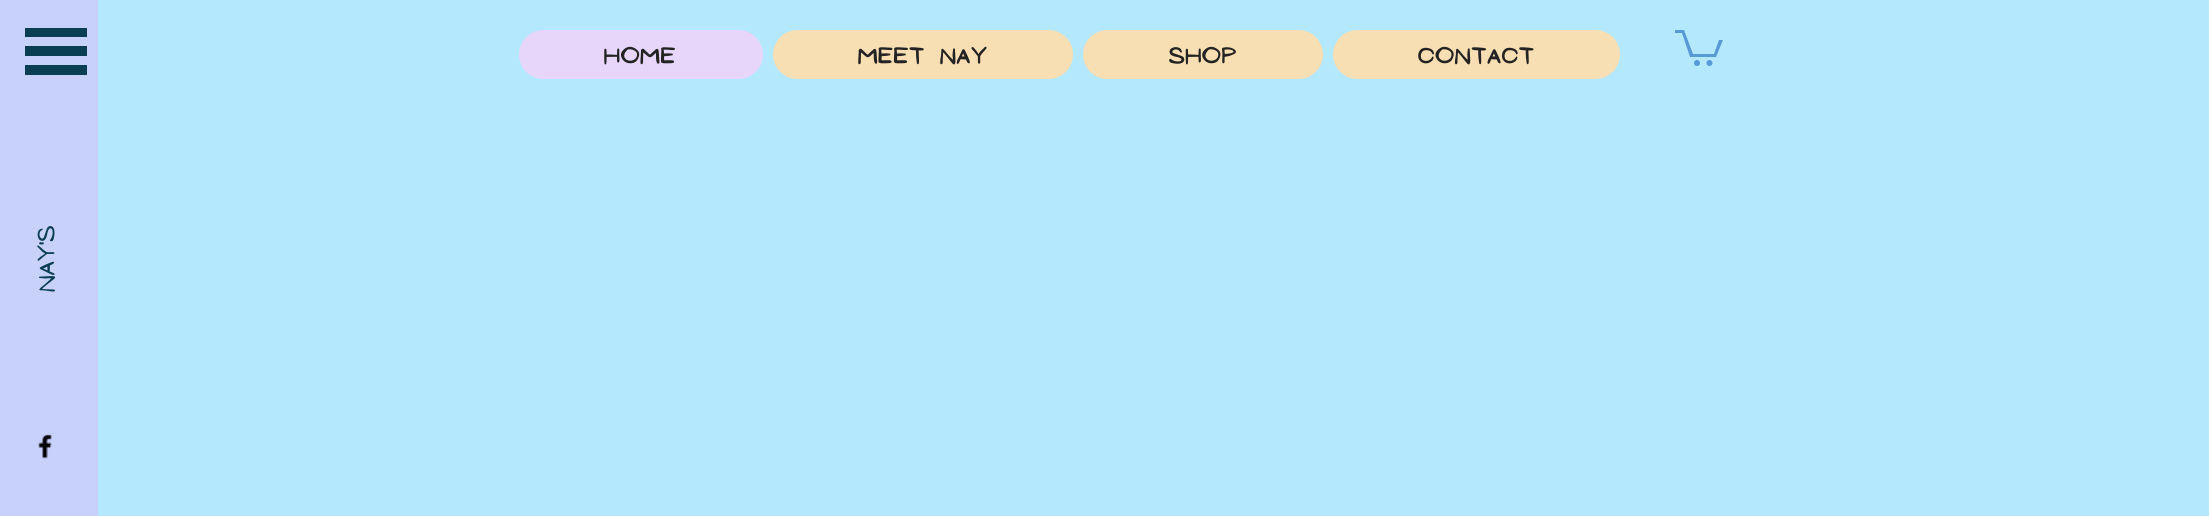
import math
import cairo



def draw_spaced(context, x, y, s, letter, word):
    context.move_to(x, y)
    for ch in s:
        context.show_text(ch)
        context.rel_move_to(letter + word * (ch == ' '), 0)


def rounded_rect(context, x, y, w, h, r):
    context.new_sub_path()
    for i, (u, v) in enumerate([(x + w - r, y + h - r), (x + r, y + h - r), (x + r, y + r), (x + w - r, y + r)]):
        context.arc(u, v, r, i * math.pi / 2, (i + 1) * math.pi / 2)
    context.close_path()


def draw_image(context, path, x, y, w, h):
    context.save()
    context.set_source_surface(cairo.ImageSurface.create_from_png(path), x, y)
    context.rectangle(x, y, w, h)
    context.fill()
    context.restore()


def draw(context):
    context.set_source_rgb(179 / 255, 232 / 255, 253 / 255)
    context.paint()
    context.set_source_rgb(200 / 255, 209 / 255, 250 / 255)
    context.rectangle(0, 0, 98, 516)
    context.fill()
    context.set_source_rgb(10 / 255, 63 / 255, 83 / 255)
    context.rectangle(25, 28, 62, 9)
    context.fill()
    context.rectangle(25, 46, 62, 10)
    context.fill()
    context.rectangle(25, 65, 62, 10)
    context.fill()
    context.set_source_rgb(231 / 255, 214 / 255, 249 / 255)
    rounded_rect(context, 519, 30, 244, 49, 24.5)
    context.fill()
    context.set_source_rgb(248 / 255, 222 / 255, 179 / 255)
    rounded_rect(context, 773, 30, 300, 49, 24.5)
    context.fill()
    rounded_rect(context, 1083, 30, 240, 49, 24.5)
    context.fill()
    rounded_rect(context, 1333, 30, 287, 49, 24.5)
    context.fill()
    context.set_source_rgb(87 / 255, 154 / 255, 215 / 255)
    context.new_path()
    context.move_to(1723, 40)
    context.line_to(1716, 57)
    context.line_to(1690, 57)
    context.line_to(1682, 33)
    context.line_to(1675, 33)
    context.line_to(1675, 30)
    context.line_to(1684, 30)
    context.line_to(1693, 54)
    context.line_to(1714, 54)
    context.line_to(1719, 40)
    context.fill()
    context.arc(1709.5, 63, 3, 0, 2 * math.pi)
    context.fill()
    context.arc(1697, 63, 3, 0, 2 * math.pi)
    context.fill()
    draw_image(context, "images/1.png", 38, 434, 14, 25)
    context.select_font_face("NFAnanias", cairo.FontSlant.NORMAL, cairo.FontWeight.BOLD)
    context.set_font_size(20)
    context.set_source_rgb(36 / 255, 35 / 255, 35 / 255)
    draw_spaced(context, 604, 63, "Home", 1, 0)
    draw_spaced(context, 858, 63, "Meet Nay", 1, 0)
    draw_spaced(context, 1169, 63, "Shop", 1, 0)
    draw_spaced(context, 1418, 63, "Contact", 1, 0)
    context.select_font_face("NFAnanias")
    context.set_font_size(21)
    context.set_source_rgb(10 / 255, 63 / 255, 83 / 255)
    context.save()
    context.translate(54, 292)
    context.rotate(-90 * math.pi / 180)
    context.move_to(0, 0)
    context.show_text("Nay's")
    context.restore()


surface = cairo.ImageSurface(cairo.Format.RGB24, 2209, 516)
context = cairo.Context(surface)
options = cairo.FontOptions()
options.set_hint_metrics(cairo.HintMetrics.OFF)
options.set_hint_style(cairo.HintStyle.NONE)
context.set_font_options(options)
context.set_miter_limit(4)
draw(context)
surface.write_to_png("out.png")
